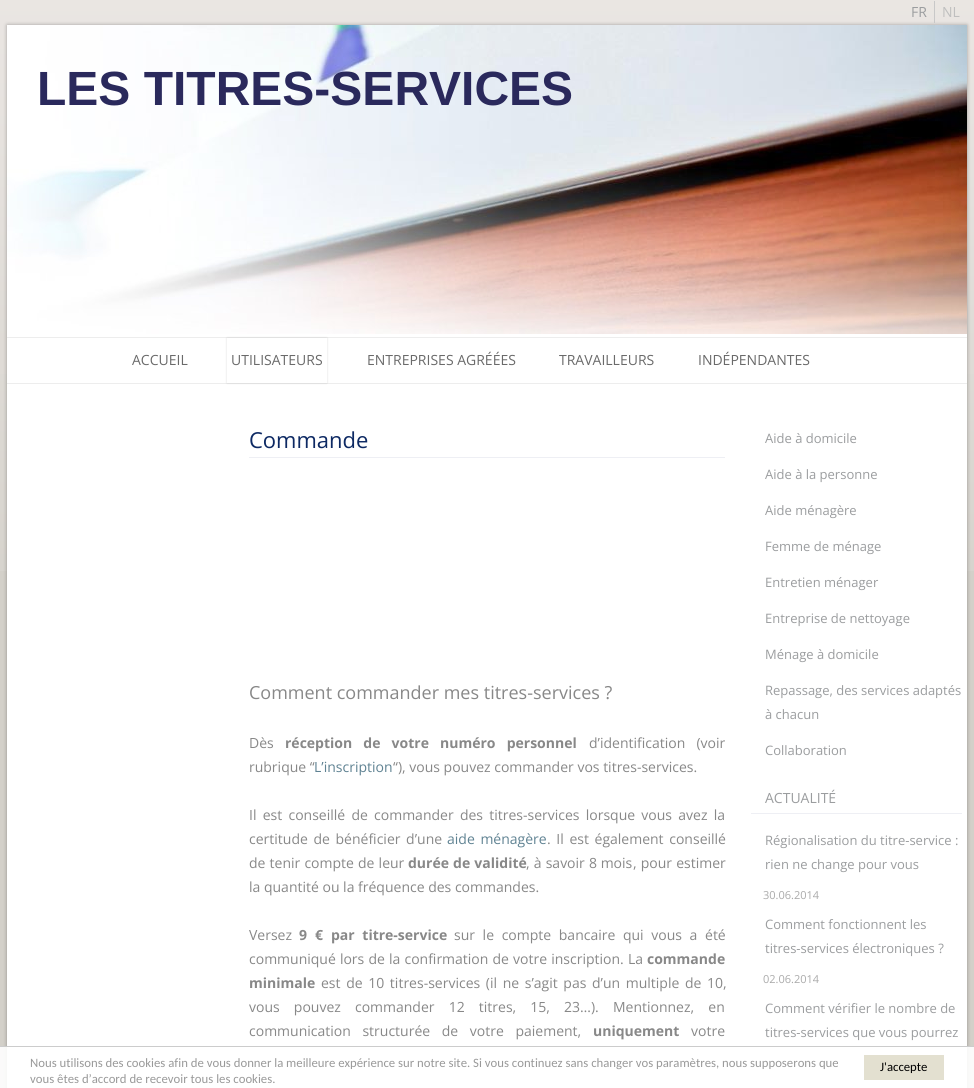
import math
import cairo



def draw_spaced(context, x, y, s, letter, word):
    context.move_to(x, y)
    for ch in s:
        context.show_text(ch)
        context.rel_move_to(letter + word * (ch == ' '), 0)


def rounded_rect(context, x, y, w, h, r):
    context.new_sub_path()
    for i, (u, v) in enumerate([(x + w - r, y + h - r), (x + r, y + h - r), (x + r, y + r), (x + w - r, y + r)]):
        context.arc(u, v, r, i * math.pi / 2, (i + 1) * math.pi / 2)
    context.close_path()


def draw_shadow(context, x, y, w, h, r, blur, alpha):
    context.push_group_with_content(cairo.Content.ALPHA)
    context.set_operator(cairo.Operator.SOURCE)
    for i in range(15, -16, -2):
        e = blur * i / 6
        if min(w, h) + 2 * e > 0:
            context.set_source_rgba(0, 0, 0, alpha * math.erfc((i - 1) / 8.5) / 2)
            rounded_rect(context, x - e, y - e, w + 2 * e, h + 2 * e, max(0, min(r + e + blur * .6, min(w, h) / 2 + e)))
            context.fill()
    context.mask(context.pop_group())


def draw_image(context, path, x, y, w, h):
    context.save()
    context.set_source_surface(cairo.ImageSurface.create_from_png(path), x, y)
    context.rectangle(x, y, w, h)
    context.fill()
    context.restore()


def draw(context):
    context.set_source_rgb(211 / 255, 208 / 255, 201 / 255)
    context.paint()
    draw_image(context, "images/1.png", 0, 0, 974, 571)
    context.set_source_rgb(0, 0, 0)
    draw_shadow(context, 7, 25, 960, 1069, 0, 2, 0.3)
    context.set_source_rgb(1, 1, 1)
    context.rectangle(7, 334, 960, 754)
    context.fill()
    draw_image(context, "images/2.png", 7, 25, 960, 309)
    context.set_source_rgb(200 / 255, 200 / 255, 200 / 255)
    context.rectangle(934, 1, 1, 22)
    context.fill()
    context.set_source_rgb(237 / 255, 237 / 255, 237 / 255)
    context.rectangle(7, 337, 960, 1)
    context.fill()
    context.rectangle(7, 383, 960, 1)
    context.fill()
    context.save()
    context.set_fill_rule(cairo.FillRule.EVEN_ODD)
    context.new_path()
    context.move_to(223, 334)
    context.line_to(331, 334)
    context.line_to(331, 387)
    context.line_to(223, 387)
    context.close_path()
    context.move_to(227, 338)
    context.line_to(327, 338)
    context.line_to(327, 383)
    context.line_to(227, 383)
    context.close_path()
    context.clip()
    context.set_source_rgb(0, 0, 0)
    draw_shadow(context, 227, 338, 100, 45, 0, 1, 0.15)
    context.restore()
    context.set_source_rgb(238 / 255, 239 / 255, 244 / 255)
    context.rectangle(249, 457, 476, 1)
    context.fill()
    context.rectangle(751, 813, 211, 1)
    context.fill()
    context.set_source_rgba(1, 1, 1, 0.9)
    context.rectangle(0, 1047, 974, 41)
    context.fill()
    context.set_source_rgb(204 / 255, 204 / 255, 204 / 255)
    context.rectangle(0, 1046, 974, 1)
    context.fill()
    context.set_source_rgb(227 / 255, 224 / 255, 208 / 255)
    context.rectangle(864, 1055, 80, 25)
    context.fill()
    context.select_font_face("Open Sans")
    context.set_font_size(14)
    context.set_source_rgb(155 / 255, 157 / 255, 159 / 255)
    context.move_to(911, 17)
    context.show_text("FR")
    context.set_source_rgb(191 / 255, 191 / 255, 191 / 255)
    context.move_to(942, 17)
    context.show_text("NL")
    context.select_font_face("Liberation Sans", cairo.FontSlant.NORMAL, cairo.FontWeight.BOLD)
    context.set_font_size(48)
    context.set_source_rgb(42 / 255, 41 / 255, 92 / 255)
    context.move_to(37, 105)
    context.show_text("LES TITRES-SERVICES")
    context.select_font_face("Open Sans")
    context.set_font_size(14)
    context.set_source_rgb(106 / 255, 106 / 255, 106 / 255)
    context.move_to(132, 365)
    context.show_text("ACCUEIL")
    context.move_to(231, 365)
    context.show_text("UTILISATEURS")
    context.move_to(367, 365)
    context.show_text("ENTREPRISES AGRÉÉES")
    context.move_to(559, 365)
    context.show_text("TRAVAILLEURS")
    context.move_to(698, 365)
    context.show_text("INDÉPENDANTES")
    context.set_font_size(22)
    context.set_source_rgb(13 / 255, 41 / 255, 99 / 255)
    context.move_to(249, 448)
    context.show_text("Commande")
    context.set_font_size(18)
    context.set_source_rgb(136 / 255, 136 / 255, 136 / 255)
    context.move_to(249, 699)
    context.show_text("Comment commander mes titres-services ?")
    context.set_font_size(14)
    context.move_to(249, 748)
    context.show_text("Dès")
    context.select_font_face("Open Sans", cairo.FontSlant.NORMAL, cairo.FontWeight.BOLD)
    draw_spaced(context, 285, 748, "réception de votre numéro personnel", 0, 7.5)
    context.select_font_face("Open Sans")
    draw_spaced(context, 589, 748, "d’identification (voir", 0, 7.5)
    context.move_to(249, 772)
    context.show_text("rubrique “")
    context.set_source_rgb(95 / 255, 130 / 255, 146 / 255)
    context.move_to(314, 772)
    context.show_text("L’inscription")
    context.set_source_rgb(136 / 255, 136 / 255, 136 / 255)
    context.move_to(393, 772)
    context.show_text("“), vous pouvez commander vos titres-services.")
    draw_spaced(context, 249, 820, "Il est conseillé de commander des titres-services lorsque vous avez la", 0, 2.6)
    draw_spaced(context, 249, 844, "certitude de bénéficier d’une", 0, 2)
    context.set_source_rgb(95 / 255, 130 / 255, 146 / 255)
    draw_spaced(context, 447, 844, "aide ménagère", 0, 2)
    context.set_source_rgb(136 / 255, 136 / 255, 136 / 255)
    draw_spaced(context, 547, 844, ". Il est également conseillé", 0, 2)
    draw_spaced(context, 249, 868, "de tenir compte de leur", 0, 0.5)
    context.select_font_face("Open Sans", cairo.FontSlant.NORMAL, cairo.FontWeight.BOLD)
    draw_spaced(context, 408, 868, "durée de validité", 0, 0.5)
    context.select_font_face("Open Sans")
    draw_spaced(context, 526, 868, ", à savoir", 0, 0.5)
    context.move_to(589, 868)
    context.show_text("8 mois")
    draw_spaced(context, 633, 868, ", pour estimer", 0, 0.5)
    context.move_to(249, 892)
    context.show_text("la quantité ou la fréquence des commandes.")
    context.move_to(249, 940)
    context.show_text("Versez")
    context.select_font_face("Open Sans", cairo.FontSlant.NORMAL, cairo.FontWeight.BOLD)
    context.move_to(299, 940)
    context.show_text("9")
    context.move_to(315, 940)
    context.show_text("€")
    draw_spaced(context, 331, 940, "par titre-service", 0, 4)
    context.select_font_face("Open Sans")
    draw_spaced(context, 454, 940, "sur le compte bancaire qui vous a été", 0, 4)
    draw_spaced(context, 249, 964, "communiqué lors de la confirmation de votre inscription. La", 0, 0.5)
    context.select_font_face("Open Sans", cairo.FontSlant.NORMAL, cairo.FontWeight.BOLD)
    context.move_to(647, 964)
    context.show_text("commande")
    context.move_to(249, 988)
    context.show_text("minimale")
    context.select_font_face("Open Sans")
    draw_spaced(context, 321, 988, "est de 10 titres-services (il ne s’agit pas d’un multiple de 10,", 0, 2)
    draw_spaced(context, 249, 1012, "vous pouvez commander 12 titres, 15, 23…). Mentionnez, en", 0, 10.5)
    draw_spaced(context, 249, 1036, "communication structurée de votre paiement,", 0, 8)
    context.select_font_face("Open Sans", cairo.FontSlant.NORMAL, cairo.FontWeight.BOLD)
    context.move_to(593, 1036)
    context.show_text("uniquement")
    context.select_font_face("Open Sans")
    context.move_to(691, 1036)
    context.show_text("votre")
    context.set_font_size(13)
    context.set_source_rgb(155 / 255, 157 / 255, 159 / 255)
    context.move_to(765, 443)
    context.show_text("Aide à domicile")
    context.move_to(765, 479)
    context.show_text("Aide à la personne")
    context.move_to(765, 515)
    context.show_text("Aide ménagère")
    context.move_to(765, 551)
    context.show_text("Femme de ménage")
    context.move_to(765, 587)
    context.show_text("Entretien ménager")
    context.move_to(765, 623)
    context.show_text("Entreprise de nettoyage")
    context.move_to(765, 659)
    context.show_text("Ménage à domicile")
    context.move_to(765, 695)
    context.show_text("Repassage, des services adaptés")
    context.move_to(765, 719)
    context.show_text("à chacun")
    context.move_to(765, 755)
    context.show_text("Collaboration")
    context.set_font_size(14)
    context.move_to(765, 803)
    context.show_text("ACTUALITÉ")
    context.set_font_size(13)
    context.move_to(765, 845)
    context.show_text("Régionalisation du titre-service :")
    context.move_to(765, 869)
    context.show_text("rien ne change pour vous")
    context.set_font_size(11)
    context.set_source_rgb(170 / 255, 170 / 255, 170 / 255)
    context.move_to(763, 899)
    context.show_text("30.06.2014")
    context.set_font_size(13)
    context.set_source_rgb(155 / 255, 157 / 255, 159 / 255)
    context.move_to(765, 929)
    context.show_text("Comment fonctionnent les")
    context.move_to(765, 953)
    context.show_text("titres-services électroniques ?")
    context.set_font_size(11)
    context.set_source_rgb(170 / 255, 170 / 255, 170 / 255)
    context.move_to(763, 983)
    context.show_text("02.06.2014")
    context.set_font_size(13)
    context.set_source_rgb(155 / 255, 157 / 255, 159 / 255)
    context.move_to(765, 1013)
    context.show_text("Comment vérifier le nombre de")
    context.move_to(765, 1037)
    context.show_text("titres-services que vous pourrez")
    context.select_font_face("Carlito")
    context.set_font_size(12.75)
    context.set_source_rgb(153 / 255, 153 / 255, 153 / 255)
    context.move_to(30, 1067)
    context.show_text("Nous utilisons des cookies afin de vous donner la meilleure expérience sur notre site. Si vous continuez sans changer vos paramètres, nous supposerons que")
    context.move_to(30, 1083)
    context.show_text("vous êtes d’accord de recevoir tous les cookies.")
    context.set_source_rgb(0, 0, 0)
    context.move_to(880, 1071)
    context.show_text("J'accepte")


surface = cairo.ImageSurface(cairo.Format.RGB24, 974, 1088)
context = cairo.Context(surface)
options = cairo.FontOptions()
options.set_hint_metrics(cairo.HintMetrics.OFF)
options.set_hint_style(cairo.HintStyle.NONE)
context.set_font_options(options)
context.set_miter_limit(4)
draw(context)
surface.write_to_png("out.png")
